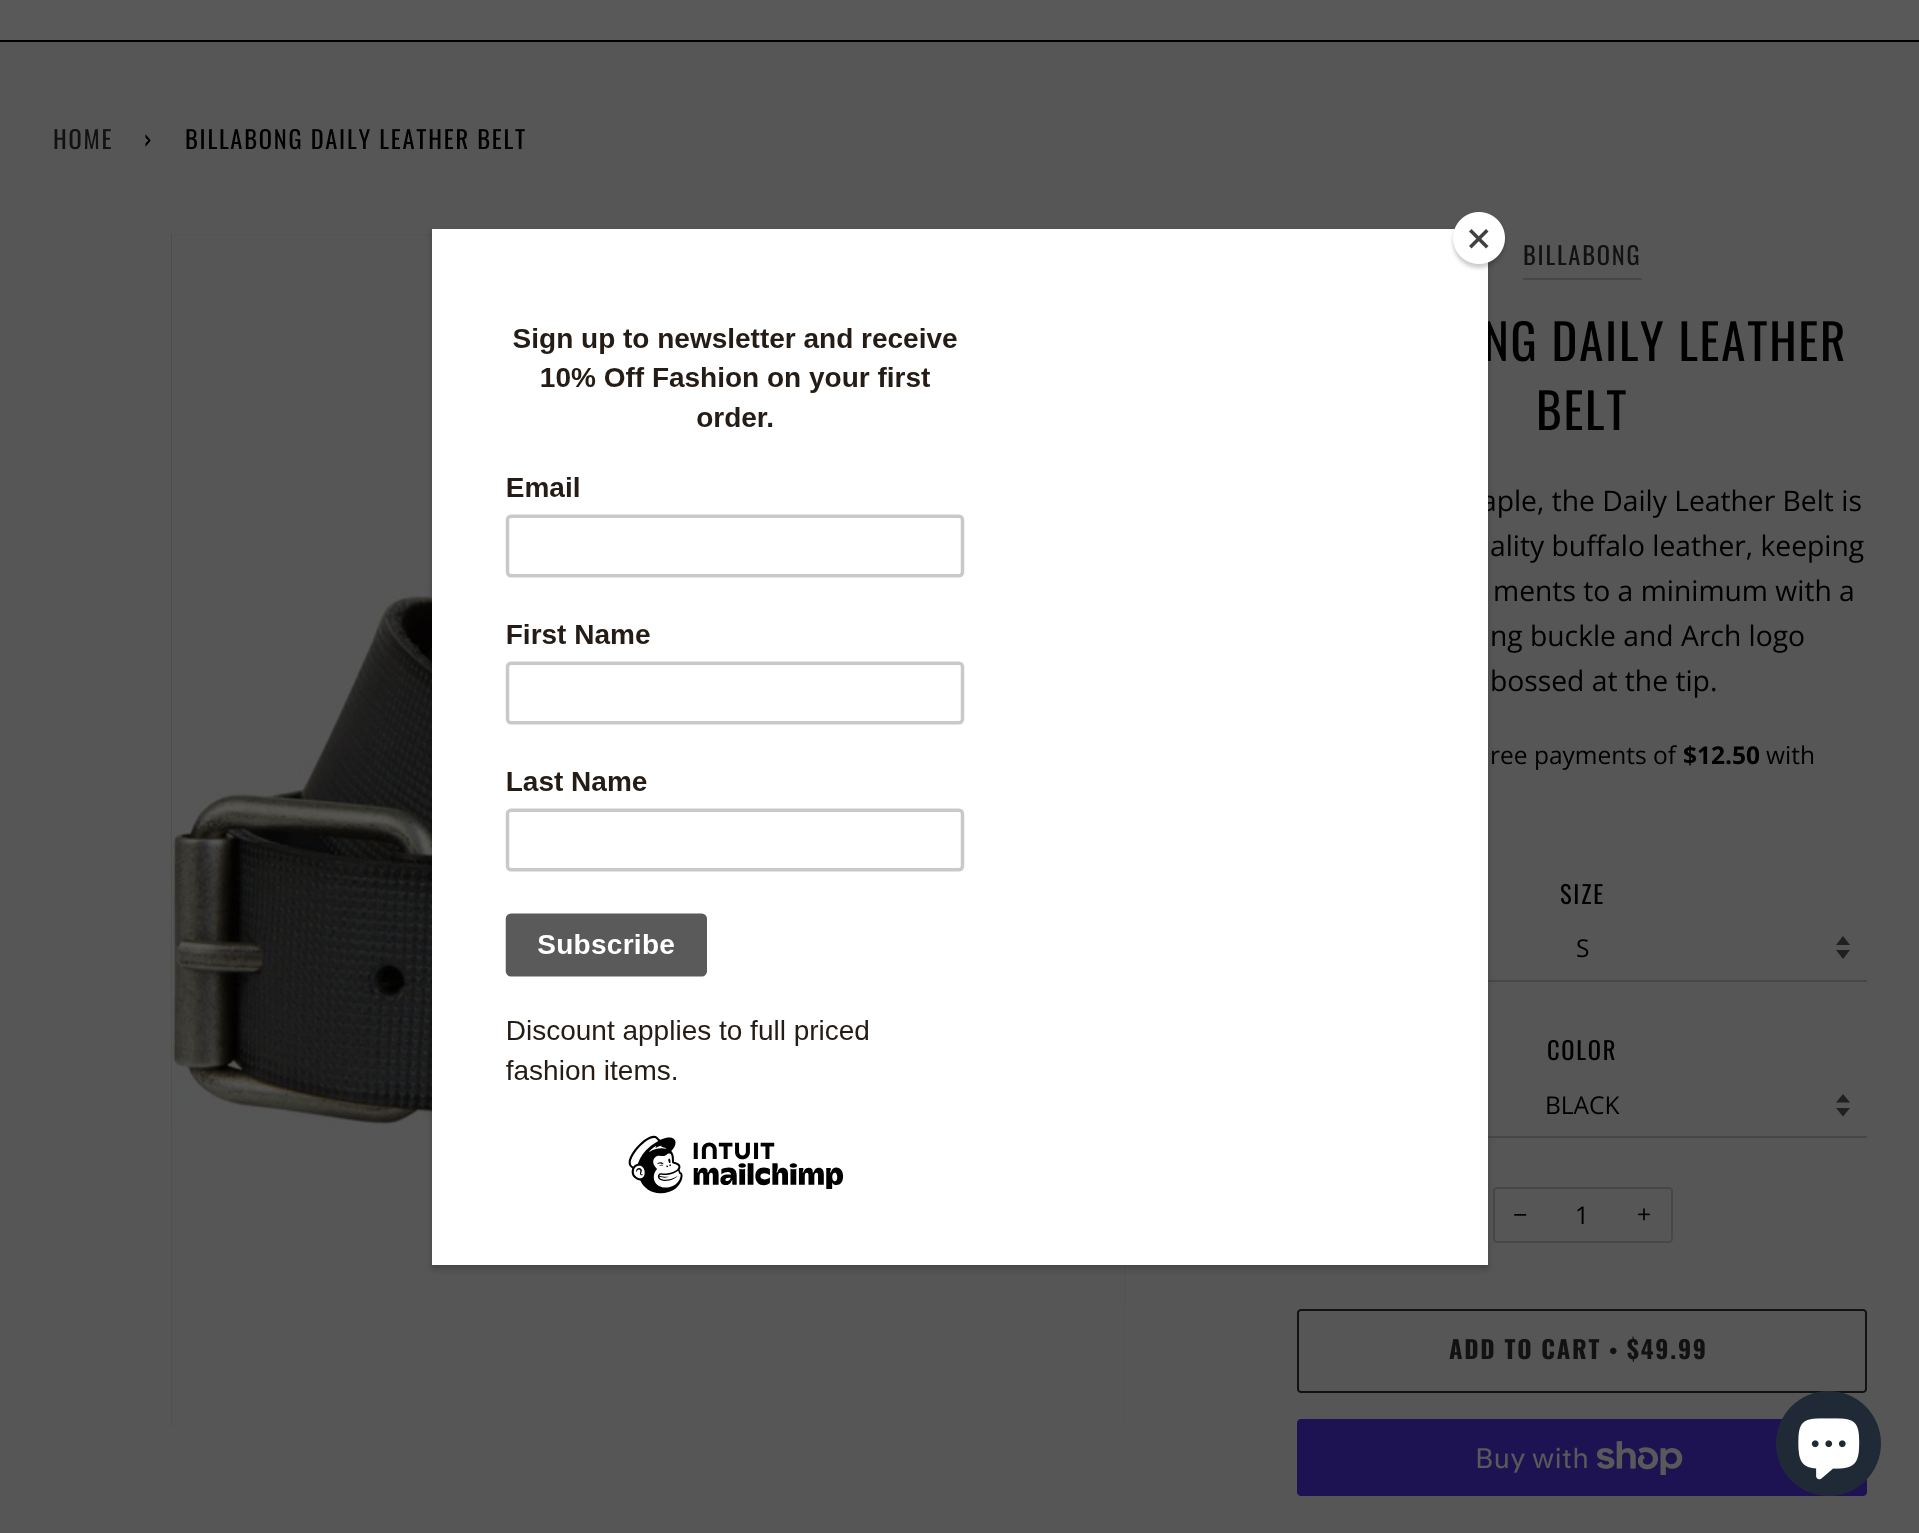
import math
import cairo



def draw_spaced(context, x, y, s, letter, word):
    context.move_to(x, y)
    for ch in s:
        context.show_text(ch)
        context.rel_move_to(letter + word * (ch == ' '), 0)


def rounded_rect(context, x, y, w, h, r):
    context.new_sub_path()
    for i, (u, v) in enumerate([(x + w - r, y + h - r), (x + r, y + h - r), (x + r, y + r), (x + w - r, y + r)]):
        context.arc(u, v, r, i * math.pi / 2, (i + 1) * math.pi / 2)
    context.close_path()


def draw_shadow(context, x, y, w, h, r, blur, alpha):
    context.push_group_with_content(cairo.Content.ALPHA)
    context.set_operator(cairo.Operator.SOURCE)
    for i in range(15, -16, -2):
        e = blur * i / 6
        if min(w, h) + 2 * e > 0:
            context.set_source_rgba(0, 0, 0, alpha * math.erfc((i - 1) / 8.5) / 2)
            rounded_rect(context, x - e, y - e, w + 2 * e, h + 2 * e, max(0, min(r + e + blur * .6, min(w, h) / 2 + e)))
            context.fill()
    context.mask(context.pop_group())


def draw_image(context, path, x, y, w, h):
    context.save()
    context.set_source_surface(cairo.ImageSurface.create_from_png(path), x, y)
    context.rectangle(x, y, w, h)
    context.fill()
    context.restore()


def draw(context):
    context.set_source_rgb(89 / 255, 89 / 255, 89 / 255)
    context.paint()
    context.set_source_rgb(0, 0, 0)
    context.rectangle(0, 40, 1919, 2)
    context.fill()
    context.set_source_rgb(86 / 255, 86 / 255, 86 / 255)
    context.rectangle(0, 42, 1919, 1491)
    context.fill()
    draw_image(context, "images/1.png", 171, 234, 955, 1192)
    draw_image(context, "images/2.png", 172, 234, 954, 1192)
    context.set_source_rgb(71 / 255, 71 / 255, 71 / 255)
    context.rectangle(1523, 278, 119, 2)
    context.fill()
    context.set_source_rgb(32 / 255, 32 / 255, 32 / 255)
    context.new_path()
    context.move_to(1836, 950)
    context.line_to(1843, 959)
    context.line_to(1850, 950)
    context.close_path()
    context.move_to(1843, 936)
    context.line_to(1836, 945)
    context.line_to(1850, 945)
    context.close_path()
    context.fill()
    context.set_source_rgb(71 / 255, 71 / 255, 71 / 255)
    context.rectangle(1488, 980, 379, 2)
    context.fill()
    context.set_source_rgb(32 / 255, 32 / 255, 32 / 255)
    context.new_path()
    context.move_to(1836, 1108)
    context.line_to(1843, 1116.5)
    context.line_to(1850, 1108)
    context.close_path()
    context.move_to(1843, 1094)
    context.line_to(1836, 1102.5)
    context.line_to(1850, 1102.5)
    context.close_path()
    context.fill()
    context.set_source_rgb(71 / 255, 71 / 255, 71 / 255)
    context.rectangle(1488, 1136, 379, 2)
    context.fill()
    rounded_rect(context, 1494, 1188, 178, 54, 3)
    context.stroke()
    rounded_rect(context, 1298, 1310, 568, 82, 3)
    context.set_source_rgb(18 / 255, 18 / 255, 18 / 255)
    context.stroke()
    context.set_source_rgb(29 / 255, 18 / 255, 82 / 255)
    rounded_rect(context, 1297, 1419, 570, 77, 4)
    context.fill()
    draw_image(context, "images/3.png", 1597, 1441, 86, 34)
    context.set_source_rgb(0, 0, 0)
    draw_shadow(context, 432, 233, 1056, 1036, 0, 3.5, 0.2)
    context.set_source_rgb(32 / 255, 42 / 255, 54 / 255)
    context.arc(1828.5, 1443.5, 52.5, 0, 2 * math.pi)
    context.fill()
    draw_image(context, "images/5.png", 1798, 1418, 62, 62)
    context.select_font_face("Oswald")
    context.set_font_size(24.5)
    context.set_source_rgb(18 / 255, 18 / 255, 18 / 255)
    draw_spaced(context, 53, 149, "HOME", 1.75, 0)
    context.set_source_rgb(0, 0, 0)
    draw_spaced(context, 144, 149, "›", 1.75, 0)
    draw_spaced(context, 185, 149, "BILLABONG DAILY LEATHER BELT", 1.75, 0)
    context.set_source_rgb(18 / 255, 18 / 255, 18 / 255)
    draw_spaced(context, 1523, 265, "BILLABONG", 1.75, 0)
    context.set_font_size(49)
    context.set_source_rgb(0, 0, 0)
    draw_spaced(context, 1483, 361, "NG DAILY LEATHER", 1.75, 0)
    draw_spaced(context, 1536, 430, "BELT", 1.75, 0)
    context.select_font_face("Open Sans")
    context.set_font_size(28.25)
    context.move_to(1481, 511)
    context.show_text("aple, the Daily Leather Belt is")
    context.move_to(1490, 556)
    context.show_text("ality buffalo leather, keeping")
    context.move_to(1493, 601)
    context.show_text("ments to a minimum with a")
    context.move_to(1490, 646)
    context.show_text("ng buckle and Arch logo")
    context.move_to(1490, 691)
    context.show_text("bossed at the tip.")
    context.set_font_size(24.5)
    context.move_to(1490, 764)
    context.show_text("ree payments of")
    context.select_font_face("Open Sans", cairo.FontSlant.NORMAL, cairo.FontWeight.BOLD)
    context.move_to(1683, 764)
    context.show_text("$12.50")
    context.select_font_face("Open Sans")
    context.move_to(1766, 764)
    context.show_text("with")
    context.select_font_face("Oswald")
    draw_spaced(context, 1560, 904, "SIZE", 1.75, 0)
    context.select_font_face("Open Sans")
    context.move_to(1576, 957)
    context.show_text("S")
    context.select_font_face("Oswald")
    draw_spaced(context, 1547, 1060, "COLOR", 1.75, 0)
    context.select_font_face("Open Sans")
    context.move_to(1545, 1114)
    context.show_text("BLACK")
    context.select_font_face("Liberation Sans")
    context.move_to(1513, 1223)
    context.show_text("−")
    context.select_font_face("Open Sans")
    context.move_to(1575, 1224)
    context.show_text("1")
    context.move_to(1637, 1223)
    context.show_text("+")
    context.select_font_face("Oswald", cairo.FontSlant.NORMAL, cairo.FontWeight.BOLD)
    context.set_source_rgb(18 / 255, 18 / 255, 18 / 255)
    draw_spaced(context, 1449, 1359, "ADD TO CART", 1.75, 0)
    context.select_font_face("Liberation Serif", cairo.FontSlant.NORMAL, cairo.FontWeight.BOLD)
    draw_spaced(context, 1609, 1359, "•", 1.75, 0)
    context.select_font_face("Oswald", cairo.FontSlant.NORMAL, cairo.FontWeight.BOLD)
    draw_spaced(context, 1627, 1359, "$49.99", 1.75, 0)
    context.select_font_face("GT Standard")
    context.set_font_size(28)
    context.set_source_rgb(89 / 255, 89 / 255, 89 / 255)
    context.move_to(1475, 1468)
    context.show_text("Buy with")
    draw_image(context, "images/4.png", 432, 229, 1056, 1036)
    context.set_source_rgb(0, 0, 0)
    draw_shadow(context, 1453, 215, 52, 53, 26, 2, 0.2)
    context.set_source_rgb(1, 1, 1)
    context.arc(1479, 238, 26, 0, 2 * math.pi)
    context.fill()
    context.set_source_rgb(65 / 255, 65 / 255, 65 / 255)
    context.new_path()
    context.move_to(1486, 229)
    context.line_to(1488.5, 231.5)
    context.line_to(1471.5, 248.5)
    context.line_to(1469, 246)
    context.close_path()
    context.fill()
    context.new_path()
    context.move_to(1469, 231.5)
    context.line_to(1471.5, 229)
    context.line_to(1488.5, 246)
    context.line_to(1486, 248.5)
    context.close_path()
    context.fill()


surface = cairo.ImageSurface(cairo.Format.RGB24, 1919, 1533)
context = cairo.Context(surface)
options = cairo.FontOptions()
options.set_hint_metrics(cairo.HintMetrics.OFF)
options.set_hint_style(cairo.HintStyle.NONE)
context.set_font_options(options)
context.set_miter_limit(4)
draw(context)
surface.write_to_png("out.png")
